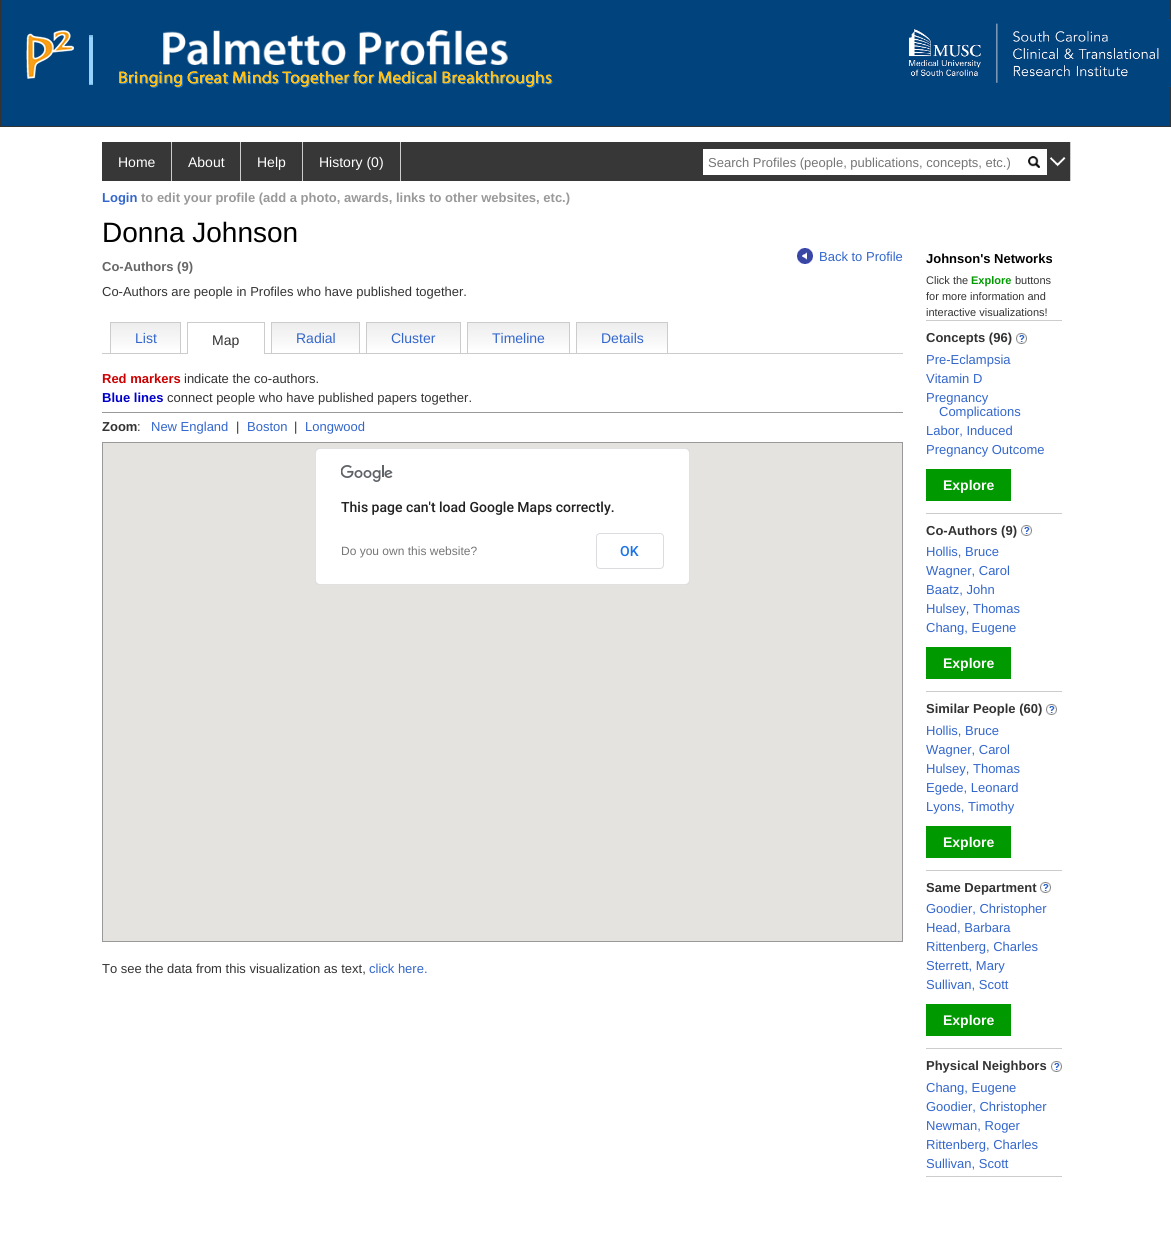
import math
import cairo



def rounded_rect(context, x, y, w, h, r):
    context.new_sub_path()
    for i, (u, v) in enumerate([(x + w - r, y + h - r), (x + r, y + h - r), (x + r, y + r), (x + w - r, y + r)]):
        context.arc(u, v, r, i * math.pi / 2, (i + 1) * math.pi / 2)
    context.close_path()


def draw_image(context, path, x, y, w, h):
    context.save()
    context.set_source_surface(cairo.ImageSurface.create_from_png(path), x, y)
    context.rectangle(x, y, w, h)
    context.fill()
    context.restore()


def draw(context):
    context.set_source_rgb(1, 1, 1)
    context.paint()
    context.set_source_rgb(1 / 255, 67 / 255, 125 / 255)
    context.rectangle(0.5, -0.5, 1170, 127)
    context.fill_preserve()
    context.set_source_rgb(51 / 255, 51 / 255, 51 / 255)
    context.set_line_width(1)
    context.stroke()
    draw_image(context, "images/1.png", 26, 30, 48, 49)
    draw_image(context, "images/2.png", 89, 35, 4, 50)
    draw_image(context, "images/3.png", 163, 30, 345, 35)
    draw_image(context, "images/4.png", 119, 70, 434, 18)
    draw_image(context, "images/5.png", 908, 19, 263, 68)
    context.set_source_rgb(56 / 255, 55 / 255, 55 / 255)
    context.rectangle(102, 142, 968, 39)
    context.fill()
    context.set_source_rgb(204 / 255, 204 / 255, 204 / 255)
    context.rectangle(171, 142, 1, 39)
    context.fill()
    context.rectangle(240, 142, 1, 39)
    context.fill()
    context.rectangle(302, 142, 1, 39)
    context.fill()
    context.rectangle(400, 142, 1, 39)
    context.fill()
    context.set_source_rgb(1, 1, 1)
    context.rectangle(703, 149, 344, 26)
    context.fill()
    draw_image(context, "images/6.png", 1028, 156, 12, 12)
    context.set_source_rgb(204 / 255, 204 / 255, 204 / 255)
    context.rectangle(1070, 142, 1, 39)
    context.fill()
    draw_image(context, "images/7.png", 1049, 157, 17, 10)
    draw_image(context, "images/8.png", 797, 248, 16, 16)
    gradient = cairo.LinearGradient(146, 323, 146, 353)
    gradient.add_color_stop_rgba(0, 237 / 255, 237 / 255, 237 / 255, 1)
    gradient.add_color_stop_rgba(1, 1, 1, 1, 1)
    context.set_source(gradient)
    context.rectangle(111, 323, 69, 26)
    context.fill()
    context.set_source_rgb(204 / 255, 204 / 255, 204 / 255)
    context.rectangle(110, 322, 71, 1)
    context.fill()
    context.rectangle(180, 322, 1, 31)
    context.fill()
    context.rectangle(110, 322, 1, 31)
    context.fill()
    context.rectangle(102, 353, 801, 1)
    context.fill()
    context.set_source_rgb(1, 1, 1)
    context.rectangle(188, 353, 76, 1)
    context.fill()
    context.set_source_rgb(204 / 255, 204 / 255, 204 / 255)
    context.rectangle(187, 322, 78, 1)
    context.fill()
    context.rectangle(264, 322, 1, 32)
    context.fill()
    context.rectangle(187, 322, 1, 32)
    context.fill()
    gradient = cairo.LinearGradient(316, 323, 316, 353)
    gradient.add_color_stop_rgba(0, 237 / 255, 237 / 255, 237 / 255, 1)
    gradient.add_color_stop_rgba(1, 1, 1, 1, 1)
    context.set_source(gradient)
    context.rectangle(272, 323, 87, 26)
    context.fill()
    context.set_source_rgb(204 / 255, 204 / 255, 204 / 255)
    context.rectangle(271, 322, 89, 1)
    context.fill()
    context.rectangle(359, 322, 1, 31)
    context.fill()
    context.rectangle(271, 322, 1, 31)
    context.fill()
    gradient = cairo.LinearGradient(414, 323, 414, 353)
    gradient.add_color_stop_rgba(0, 237 / 255, 237 / 255, 237 / 255, 1)
    gradient.add_color_stop_rgba(1, 1, 1, 1, 1)
    context.set_source(gradient)
    context.rectangle(367, 323, 93, 26)
    context.fill()
    context.set_source_rgb(204 / 255, 204 / 255, 204 / 255)
    context.rectangle(366, 322, 95, 1)
    context.fill()
    context.rectangle(460, 322, 1, 31)
    context.fill()
    context.rectangle(366, 322, 1, 31)
    context.fill()
    gradient = cairo.LinearGradient(519, 323, 519, 353)
    gradient.add_color_stop_rgba(0, 237 / 255, 237 / 255, 237 / 255, 1)
    gradient.add_color_stop_rgba(1, 1, 1, 1, 1)
    context.set_source(gradient)
    context.rectangle(468, 323, 101, 26)
    context.fill()
    context.set_source_rgb(204 / 255, 204 / 255, 204 / 255)
    context.rectangle(467, 322, 103, 1)
    context.fill()
    context.rectangle(569, 322, 1, 31)
    context.fill()
    context.rectangle(467, 322, 1, 31)
    context.fill()
    gradient = cairo.LinearGradient(622, 323, 622, 353)
    gradient.add_color_stop_rgba(0, 237 / 255, 237 / 255, 237 / 255, 1)
    gradient.add_color_stop_rgba(1, 1, 1, 1, 1)
    context.set_source(gradient)
    context.rectangle(577, 323, 90, 26)
    context.fill()
    context.set_source_rgb(204 / 255, 204 / 255, 204 / 255)
    context.rectangle(576, 322, 92, 1)
    context.fill()
    context.rectangle(667, 322, 1, 31)
    context.fill()
    context.rectangle(576, 322, 1, 31)
    context.fill()
    context.set_source_rgb(153 / 255, 153 / 255, 153 / 255)
    context.rectangle(102, 412, 801, 1)
    context.fill()
    context.rectangle(102.5, 442.5, 800, 499)
    context.stroke()
    context.set_source_rgb(229 / 255, 227 / 255, 223 / 255)
    context.rectangle(103, 443, 799, 498)
    context.fill()
    rounded_rect(context, 315.5, 448.5, 374, 136, 4.5)
    context.set_source_rgba(0, 0, 0, 0.12)
    context.stroke()
    context.set_source_rgb(1, 1, 1)
    rounded_rect(context, 315, 448, 375, 137, 5)
    context.fill()
    rounded_rect(context, 315.5, 448.5, 374, 136, 4.5)
    context.set_source_rgba(0, 0, 0, 0.12)
    context.stroke()
    draw_image(context, "images/9.png", 341, 465, 52, 17)
    rounded_rect(context, 596.5, 533.5, 67, 35, 3.5)
    context.set_source_rgb(218 / 255, 220 / 255, 224 / 255)
    context.stroke()
    context.set_source_rgb(204 / 255, 204 / 255, 204 / 255)
    context.rectangle(926, 320, 136, 1)
    context.fill()
    draw_image(context, "images/10.png", 1016, 333, 11, 11)
    context.set_source_rgb(0, 153 / 255, 0)
    context.rectangle(926, 469, 85, 32)
    context.fill()
    context.set_source_rgb(204 / 255, 204 / 255, 204 / 255)
    context.rectangle(926, 513, 136, 1)
    context.fill()
    draw_image(context, "images/10.png", 1021, 525, 11, 11)
    context.set_source_rgb(0, 153 / 255, 0)
    context.rectangle(926, 647, 85, 32)
    context.fill()
    context.set_source_rgb(204 / 255, 204 / 255, 204 / 255)
    context.rectangle(926, 691, 136, 1)
    context.fill()
    draw_image(context, "images/10.png", 1046, 704, 11, 11)
    context.set_source_rgb(0, 153 / 255, 0)
    context.rectangle(926, 826, 85, 32)
    context.fill()
    context.set_source_rgb(204 / 255, 204 / 255, 204 / 255)
    context.rectangle(926, 870, 136, 1)
    context.fill()
    draw_image(context, "images/10.png", 1040, 882, 11, 11)
    context.set_source_rgb(0, 153 / 255, 0)
    context.rectangle(926, 1004, 85, 32)
    context.fill()
    context.set_source_rgb(204 / 255, 204 / 255, 204 / 255)
    context.rectangle(926, 1048, 136, 1)
    context.fill()
    draw_image(context, "images/10.png", 1051, 1061, 11, 11)
    context.rectangle(926, 1176, 136, 1)
    context.fill()
    context.select_font_face("Liberation Sans")
    context.set_font_size(14)
    context.set_source_rgb(1, 1, 1)
    context.move_to(118, 167)
    context.show_text("Home")
    context.move_to(188, 167)
    context.show_text("About")
    context.move_to(257, 167)
    context.show_text("Help")
    context.move_to(319, 167)
    context.show_text("History (0)")
    context.set_font_size(13)
    context.set_source_rgb(117 / 255, 117 / 255, 117 / 255)
    context.move_to(708, 167)
    context.show_text("Search Profiles (people, publications, concepts, etc.)")
    context.select_font_face("Liberation Sans", cairo.FontSlant.NORMAL, cairo.FontWeight.BOLD)
    context.set_source_rgb(51 / 255, 102 / 255, 204 / 255)
    context.move_to(102, 202)
    context.show_text("Login")
    context.set_source_rgb(153 / 255, 153 / 255, 153 / 255)
    context.move_to(141, 202)
    context.show_text("to edit your profile (add a photo, awards, links to other websites, etc.)")
    context.select_font_face("Liberation Sans")
    context.set_font_size(28)
    context.set_source_rgb(0, 0, 0)
    context.move_to(102, 242)
    context.show_text("Donna Johnson")
    context.set_font_size(13)
    context.set_source_rgb(51 / 255, 102 / 255, 204 / 255)
    context.move_to(819, 261)
    context.show_text("Back to Profile")
    context.select_font_face("Liberation Sans", cairo.FontSlant.NORMAL, cairo.FontWeight.BOLD)
    context.set_source_rgb(102 / 255, 102 / 255, 102 / 255)
    context.move_to(102, 271)
    context.show_text("Co-Authors (9)")
    context.select_font_face("Liberation Sans")
    context.set_source_rgb(51 / 255, 51 / 255, 51 / 255)
    context.move_to(102, 296)
    context.show_text("Co-Authors are people in Profiles who have published together.")
    context.set_font_size(14)
    context.set_source_rgb(51 / 255, 102 / 255, 204 / 255)
    context.move_to(135, 343)
    context.show_text("List")
    context.set_source_rgb(51 / 255, 51 / 255, 51 / 255)
    context.move_to(212, 345)
    context.show_text("Map")
    context.set_source_rgb(51 / 255, 102 / 255, 204 / 255)
    context.move_to(296, 343)
    context.show_text("Radial")
    context.move_to(391, 343)
    context.show_text("Cluster")
    context.move_to(492, 343)
    context.show_text("Timeline")
    context.move_to(601, 343)
    context.show_text("Details")
    context.select_font_face("Liberation Sans", cairo.FontSlant.NORMAL, cairo.FontWeight.BOLD)
    context.set_font_size(13)
    context.set_source_rgb(204 / 255, 0, 0)
    context.move_to(102, 383)
    context.show_text("Red markers")
    context.select_font_face("Liberation Sans")
    context.set_source_rgb(51 / 255, 51 / 255, 51 / 255)
    context.move_to(184, 383)
    context.show_text("indicate the co-authors.")
    context.select_font_face("Liberation Sans", cairo.FontSlant.NORMAL, cairo.FontWeight.BOLD)
    context.set_source_rgb(0, 0, 204 / 255)
    context.move_to(102, 402)
    context.show_text("Blue lines")
    context.select_font_face("Liberation Sans")
    context.set_source_rgb(51 / 255, 51 / 255, 51 / 255)
    context.move_to(167, 402)
    context.show_text("connect people who have published papers together.")
    context.select_font_face("Liberation Sans", cairo.FontSlant.NORMAL, cairo.FontWeight.BOLD)
    context.move_to(102, 431)
    context.show_text("Zoom")
    context.select_font_face("Liberation Sans")
    context.move_to(137, 431)
    context.show_text(":")
    context.set_source_rgb(51 / 255, 102 / 255, 204 / 255)
    context.move_to(151, 431)
    context.show_text("New England")
    context.set_source_rgb(51 / 255, 51 / 255, 51 / 255)
    context.move_to(236, 431)
    context.show_text("|")
    context.set_source_rgb(51 / 255, 102 / 255, 204 / 255)
    context.move_to(247, 431)
    context.show_text("Boston")
    context.set_source_rgb(51 / 255, 51 / 255, 51 / 255)
    context.move_to(294, 431)
    context.show_text("|")
    context.set_source_rgb(51 / 255, 102 / 255, 204 / 255)
    context.move_to(305, 431)
    context.show_text("Longwood")
    context.select_font_face("Roboto Medium")
    context.set_font_size(14)
    context.set_source_rgb(33 / 255, 33 / 255, 33 / 255)
    context.move_to(341, 512)
    context.show_text("This page can't load Google Maps correctly.")
    context.select_font_face("Liberation Sans")
    context.set_font_size(12)
    context.set_source_rgb(117 / 255, 117 / 255, 117 / 255)
    context.move_to(341, 555)
    context.show_text("Do you own this website?")
    context.select_font_face("Roboto Medium")
    context.set_font_size(14)
    context.set_source_rgb(26 / 255, 115 / 255, 232 / 255)
    context.move_to(620, 556)
    context.show_text("OK")
    context.select_font_face("Liberation Sans")
    context.set_font_size(13)
    context.set_source_rgb(51 / 255, 51 / 255, 51 / 255)
    context.move_to(102, 973)
    context.show_text("To see the data from this visualization as text,")
    context.set_source_rgb(51 / 255, 102 / 255, 204 / 255)
    context.move_to(369, 973)
    context.show_text("click here.")
    context.select_font_face("Liberation Sans", cairo.FontSlant.NORMAL, cairo.FontWeight.BOLD)
    context.set_source_rgb(0, 0, 0)
    context.move_to(926, 263)
    context.show_text("Johnson's Networks")
    context.select_font_face("Liberation Sans")
    context.set_font_size(11)
    context.set_source_rgb(51 / 255, 51 / 255, 51 / 255)
    context.move_to(926, 284)
    context.show_text("Click the")
    context.select_font_face("Liberation Sans", cairo.FontSlant.NORMAL, cairo.FontWeight.BOLD)
    context.set_source_rgb(0, 153 / 255, 0)
    context.move_to(971, 284)
    context.show_text("Explore")
    context.select_font_face("Liberation Sans")
    context.set_source_rgb(51 / 255, 51 / 255, 51 / 255)
    context.move_to(1015, 284)
    context.show_text("buttons")
    context.move_to(926, 300)
    context.show_text("for more information and")
    context.move_to(926, 316)
    context.show_text("interactive visualizations!")
    context.select_font_face("Liberation Sans", cairo.FontSlant.NORMAL, cairo.FontWeight.BOLD)
    context.set_font_size(13)
    context.move_to(926, 342)
    context.show_text("Concepts (96)")
    context.select_font_face("Liberation Sans")
    context.set_source_rgb(51 / 255, 102 / 255, 204 / 255)
    context.move_to(926, 364)
    context.show_text("Pre-Eclampsia")
    context.move_to(926, 383)
    context.show_text("Vitamin D")
    context.move_to(926, 402)
    context.show_text("Pregnancy")
    context.move_to(939, 416)
    context.show_text("Complications")
    context.move_to(926, 435)
    context.show_text("Labor, Induced")
    context.move_to(926, 454)
    context.show_text("Pregnancy Outcome")
    context.select_font_face("Liberation Sans", cairo.FontSlant.NORMAL, cairo.FontWeight.BOLD)
    context.set_font_size(14)
    context.set_source_rgb(1, 1, 1)
    context.move_to(943, 490)
    context.show_text("Explore")
    context.set_font_size(13)
    context.set_source_rgb(51 / 255, 51 / 255, 51 / 255)
    context.move_to(926, 535)
    context.show_text("Co-Authors (9)")
    context.select_font_face("Liberation Sans")
    context.set_source_rgb(51 / 255, 102 / 255, 204 / 255)
    context.move_to(926, 556)
    context.show_text("Hollis, Bruce")
    context.move_to(926, 575)
    context.show_text("Wagner, Carol")
    context.move_to(926, 594)
    context.show_text("Baatz, John")
    context.move_to(926, 613)
    context.show_text("Hulsey, Thomas")
    context.move_to(926, 632)
    context.show_text("Chang, Eugene")
    context.select_font_face("Liberation Sans", cairo.FontSlant.NORMAL, cairo.FontWeight.BOLD)
    context.set_font_size(14)
    context.set_source_rgb(1, 1, 1)
    context.move_to(943, 668)
    context.show_text("Explore")
    context.set_font_size(13)
    context.set_source_rgb(51 / 255, 51 / 255, 51 / 255)
    context.move_to(926, 713)
    context.show_text("Similar People (60)")
    context.select_font_face("Liberation Sans")
    context.set_source_rgb(51 / 255, 102 / 255, 204 / 255)
    context.move_to(926, 735)
    context.show_text("Hollis, Bruce")
    context.move_to(926, 754)
    context.show_text("Wagner, Carol")
    context.move_to(926, 773)
    context.show_text("Hulsey, Thomas")
    context.move_to(926, 792)
    context.show_text("Egede, Leonard")
    context.move_to(926, 811)
    context.show_text("Lyons, Timothy")
    context.select_font_face("Liberation Sans", cairo.FontSlant.NORMAL, cairo.FontWeight.BOLD)
    context.set_font_size(14)
    context.set_source_rgb(1, 1, 1)
    context.move_to(943, 847)
    context.show_text("Explore")
    context.set_font_size(13)
    context.set_source_rgb(51 / 255, 51 / 255, 51 / 255)
    context.move_to(926, 892)
    context.show_text("Same Department")
    context.select_font_face("Liberation Sans")
    context.set_source_rgb(51 / 255, 102 / 255, 204 / 255)
    context.move_to(926, 913)
    context.show_text("Goodier, Christopher")
    context.move_to(926, 932)
    context.show_text("Head, Barbara")
    context.move_to(926, 951)
    context.show_text("Rittenberg, Charles")
    context.move_to(926, 970)
    context.show_text("Sterrett, Mary")
    context.move_to(926, 989)
    context.show_text("Sullivan, Scott")
    context.select_font_face("Liberation Sans", cairo.FontSlant.NORMAL, cairo.FontWeight.BOLD)
    context.set_font_size(14)
    context.set_source_rgb(1, 1, 1)
    context.move_to(943, 1025)
    context.show_text("Explore")
    context.set_font_size(13)
    context.set_source_rgb(51 / 255, 51 / 255, 51 / 255)
    context.move_to(926, 1070)
    context.show_text("Physical Neighbors")
    context.select_font_face("Liberation Sans")
    context.set_source_rgb(51 / 255, 102 / 255, 204 / 255)
    context.move_to(926, 1092)
    context.show_text("Chang, Eugene")
    context.move_to(926, 1111)
    context.show_text("Goodier, Christopher")
    context.move_to(926, 1130)
    context.show_text("Newman, Roger")
    context.move_to(926, 1149)
    context.show_text("Rittenberg, Charles")
    context.move_to(926, 1168)
    context.show_text("Sullivan, Scott")


surface = cairo.ImageSurface(cairo.Format.RGB24, 1171, 1238)
context = cairo.Context(surface)
options = cairo.FontOptions()
options.set_hint_metrics(cairo.HintMetrics.OFF)
options.set_hint_style(cairo.HintStyle.NONE)
context.set_font_options(options)
context.set_miter_limit(4)
draw(context)
surface.write_to_png("out.png")
